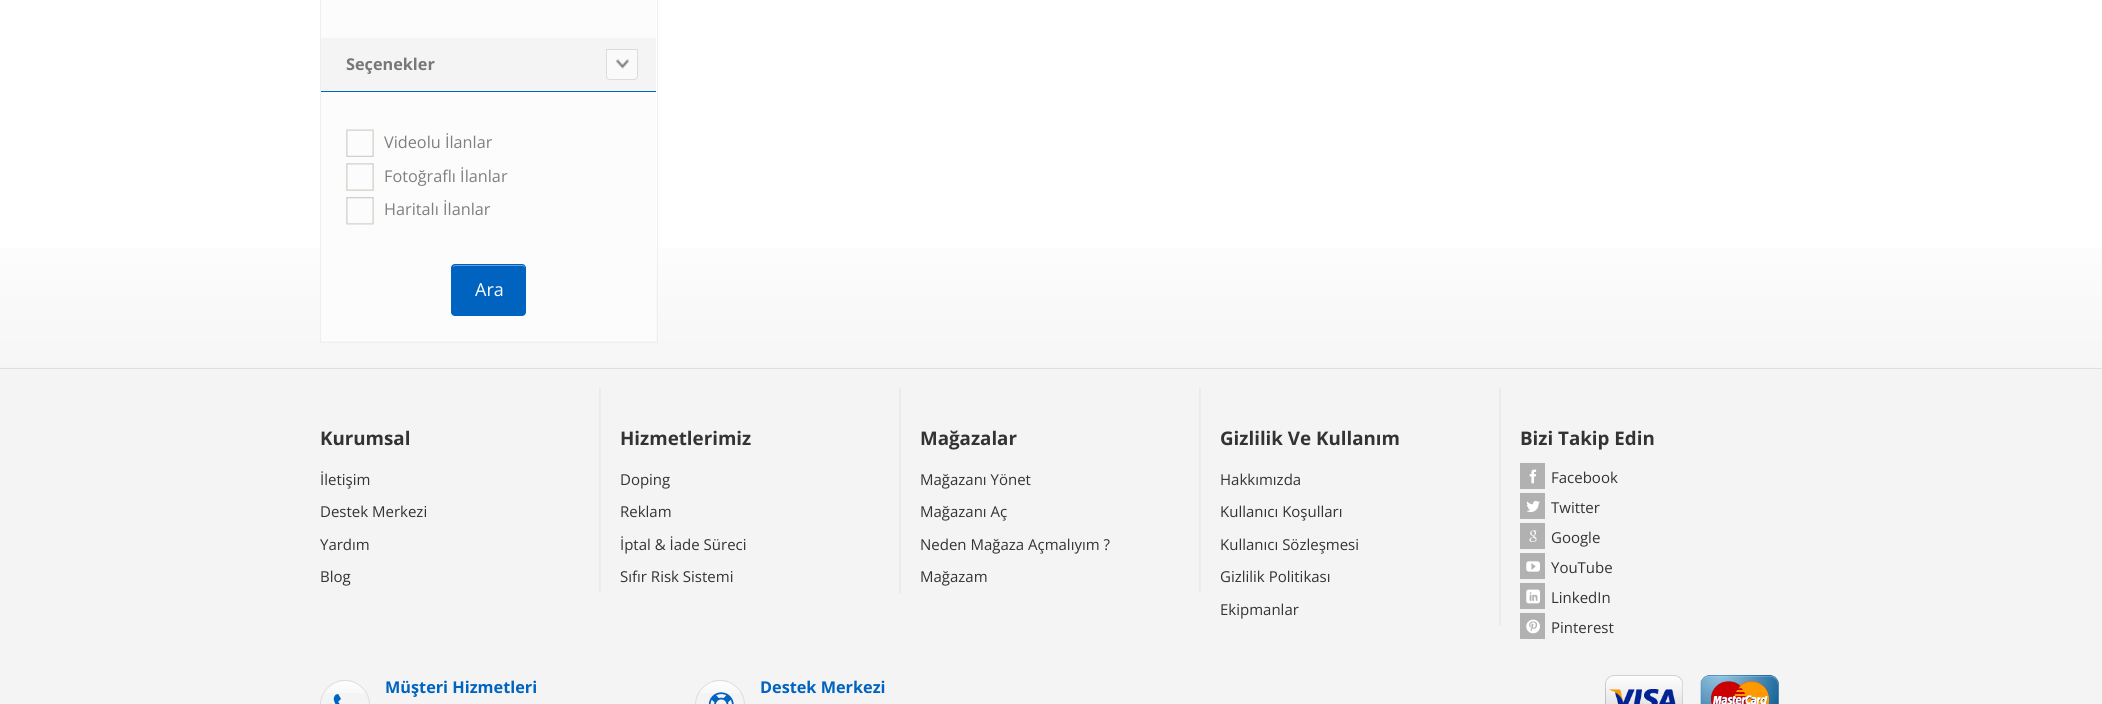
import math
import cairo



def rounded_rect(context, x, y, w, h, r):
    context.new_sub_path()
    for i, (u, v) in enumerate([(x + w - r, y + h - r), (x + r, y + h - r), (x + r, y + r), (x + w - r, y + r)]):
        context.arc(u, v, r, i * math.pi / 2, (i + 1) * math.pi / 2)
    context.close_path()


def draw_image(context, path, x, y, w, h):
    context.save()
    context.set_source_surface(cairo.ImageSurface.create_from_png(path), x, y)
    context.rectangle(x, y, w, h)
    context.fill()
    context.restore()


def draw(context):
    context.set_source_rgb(1, 1, 1)
    context.paint()
    gradient = cairo.LinearGradient(1051, 210, 1051, 373)
    gradient.add_color_stop_rgba(0, 1, 1, 1, 1)
    gradient.add_color_stop_rgba(0.47, 250 / 255, 250 / 255, 250 / 255, 1)
    gradient.add_color_stop_rgba(1, 246 / 255, 246 / 255, 246 / 255, 1)
    context.set_source(gradient)
    context.rectangle(0, 248, 2102, 120)
    context.fill()
    context.rectangle(320.5, -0.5, 337, 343)
    context.set_source_rgb(238 / 255, 238 / 255, 238 / 255)
    context.set_line_width(1)
    context.stroke()
    context.set_source_rgb(252 / 255, 252 / 255, 252 / 255)
    context.rectangle(321, 0, 335, 38)
    context.fill()
    context.set_source_rgb(244 / 255, 244 / 255, 244 / 255)
    context.rectangle(321, 38, 335, 53)
    context.fill()
    context.set_source_rgb(250 / 255, 250 / 255, 250 / 255)
    context.new_path()
    context.move_to(606, 49)
    context.line_to(638, 49)
    context.line_to(638, 76)
    context.curve_to(638, 78, 636, 80, 634, 80)
    context.line_to(610, 80)
    context.curve_to(608, 80, 606, 78, 606, 76)
    context.close_path()
    context.fill()
    draw_image(context, "images/1.png", 616, 59, 13, 10)
    context.new_path()
    context.move_to(606.5, 49.5)
    context.line_to(637.5, 49.5)
    context.line_to(637.5, 76)
    context.curve_to(637.5, 78, 636, 79.5, 634, 79.5)
    context.line_to(610, 79.5)
    context.curve_to(608, 79.5, 606.5, 78, 606.5, 76)
    context.close_path()
    context.set_source_rgb(220 / 255, 220 / 255, 220 / 255)
    context.stroke()
    context.set_source_rgb(252 / 255, 252 / 255, 252 / 255)
    context.rectangle(321, 92, 335, 249)
    context.fill()
    context.set_source_rgb(0, 99 / 255, 192 / 255)
    context.rectangle(321, 91, 335, 1)
    context.fill()
    draw_image(context, "images/2.png", 346, 129, 28, 28)
    draw_image(context, "images/3.png", 346, 163, 28, 28)
    draw_image(context, "images/4.png", 346, 197, 28, 28)
    rounded_rect(context, 451, 264, 75, 52, 4)
    context.fill()
    context.set_source_rgb(102 / 255, 161 / 255, 217 / 255)
    context.new_path()
    context.move_to(455, 266)
    context.line_to(522, 266)
    context.curve_to(524, 266, 525, 267, 525, 269)
    context.line_to(525, 268)
    context.curve_to(525, 266, 524, 265, 522, 265)
    context.line_to(456, 265)
    context.curve_to(454, 265, 453, 266, 453, 267)
    context.close_path()
    context.fill()
    context.set_source_rgb(244 / 255, 244 / 255, 244 / 255)
    context.rectangle(0, 369, 2102, 335)
    context.fill()
    context.set_source_rgb(223 / 255, 223 / 255, 223 / 255)
    context.rectangle(0, 368, 2102, 1)
    context.fill()
    context.set_source_rgb(236 / 255, 236 / 255, 236 / 255)
    context.rectangle(600, 388, 1, 205)
    context.fill()
    context.set_source_rgb(234 / 255, 234 / 255, 234 / 255)
    context.rectangle(599, 388, 1, 205)
    context.fill()
    context.set_source_rgb(236 / 255, 236 / 255, 236 / 255)
    context.rectangle(900, 388, 1, 205)
    context.fill()
    context.set_source_rgb(234 / 255, 234 / 255, 234 / 255)
    context.rectangle(899, 388, 1, 205)
    context.fill()
    context.set_source_rgb(236 / 255, 236 / 255, 236 / 255)
    context.rectangle(1200, 388, 1, 205)
    context.fill()
    context.set_source_rgb(234 / 255, 234 / 255, 234 / 255)
    context.rectangle(1199, 388, 1, 205)
    context.fill()
    context.set_source_rgb(236 / 255, 236 / 255, 236 / 255)
    context.rectangle(1500, 388, 1, 237)
    context.fill()
    context.set_source_rgb(234 / 255, 234 / 255, 234 / 255)
    context.rectangle(1499, 388, 1, 237)
    context.fill()
    context.set_source_rgb(177 / 255, 177 / 255, 177 / 255)
    context.rectangle(1520, 463, 25, 26)
    context.fill()
    draw_image(context, "images/5.png", 1529, 469, 8, 15)
    context.rectangle(1520, 493, 25, 26)
    context.fill()
    draw_image(context, "images/6.png", 1526, 501, 14, 12)
    context.rectangle(1520, 523, 25, 26)
    context.fill()
    draw_image(context, "images/7.png", 1529, 530, 8, 12)
    context.rectangle(1520, 553, 25, 26)
    context.fill()
    draw_image(context, "images/8.png", 1526, 561, 14, 11)
    context.rectangle(1520, 583, 25, 26)
    context.fill()
    draw_image(context, "images/9.png", 1526, 589, 14, 15)
    context.rectangle(1520, 613, 25, 26)
    context.fill()
    draw_image(context, "images/10.png", 1526, 619, 14, 15)
    draw_image(context, "images/11.png", 324, 680, 42, 13)
    context.arc(345, 705, 24.5, 0, 2 * math.pi)
    context.set_source_rgb(221 / 255, 221 / 255, 221 / 255)
    context.stroke()
    draw_image(context, "images/12.png", 333, 694, 8, 10)
    draw_image(context, "images/11.png", 699, 680, 42, 13)
    context.arc(720, 705, 24.5, 0, 2 * math.pi)
    context.stroke()
    draw_image(context, "images/13.png", 708, 692, 26, 12)
    draw_image(context, "images/14.png", 1605, 675, 174, 29)
    context.select_font_face("Open Sans", cairo.FontSlant.NORMAL, cairo.FontWeight.BOLD)
    context.set_font_size(16.25)
    context.set_source_rgb(119 / 255, 119 / 255, 119 / 255)
    context.move_to(346, 70)
    context.show_text("Seçenekler")
    context.select_font_face("Open Sans")
    context.set_source_rgb(124 / 255, 128 / 255, 126 / 255)
    context.move_to(384, 148)
    context.show_text("Videolu İlanlar")
    context.move_to(384, 182)
    context.show_text("Fotoğraflı İlanlar")
    context.move_to(384, 215)
    context.show_text("Haritalı İlanlar")
    context.set_font_size(18)
    context.set_source_rgb(1, 1, 1)
    context.move_to(475, 296)
    context.show_text("Ara")
    context.select_font_face("Open Sans", cairo.FontSlant.NORMAL, cairo.FontWeight.BOLD)
    context.set_font_size(18.75)
    context.set_source_rgb(51 / 255, 51 / 255, 51 / 255)
    context.move_to(320, 445)
    context.show_text("Kurumsal")
    context.select_font_face("Open Sans")
    context.set_font_size(15)
    context.move_to(320, 485)
    context.show_text("İletişim")
    context.move_to(320, 517)
    context.show_text("Destek Merkezi")
    context.move_to(320, 550)
    context.show_text("Yardım")
    context.move_to(320, 582)
    context.show_text("Blog")
    context.select_font_face("Open Sans", cairo.FontSlant.NORMAL, cairo.FontWeight.BOLD)
    context.set_font_size(18.75)
    context.move_to(620, 445)
    context.show_text("Hizmetlerimiz")
    context.select_font_face("Open Sans")
    context.set_font_size(15)
    context.move_to(620, 485)
    context.show_text("Doping")
    context.move_to(620, 517)
    context.show_text("Reklam")
    context.move_to(620, 550)
    context.show_text("İptal & İade Süreci")
    context.move_to(620, 582)
    context.show_text("Sıfır Risk Sistemi")
    context.select_font_face("Open Sans", cairo.FontSlant.NORMAL, cairo.FontWeight.BOLD)
    context.set_font_size(18.75)
    context.move_to(920, 445)
    context.show_text("Mağazalar")
    context.select_font_face("Open Sans")
    context.set_font_size(15)
    context.move_to(920, 485)
    context.show_text("Mağazanı Yönet")
    context.move_to(920, 517)
    context.show_text("Mağazanı Aç")
    context.move_to(920, 550)
    context.show_text("Neden Mağaza Açmalıyım ?")
    context.move_to(920, 582)
    context.show_text("Mağazam")
    context.select_font_face("Open Sans", cairo.FontSlant.NORMAL, cairo.FontWeight.BOLD)
    context.set_font_size(18.75)
    context.move_to(1220, 445)
    context.show_text("Gizlilik Ve Kullanım")
    context.select_font_face("Open Sans")
    context.set_font_size(15)
    context.move_to(1220, 485)
    context.show_text("Hakkımızda")
    context.move_to(1220, 517)
    context.show_text("Kullanıcı Koşulları")
    context.move_to(1220, 550)
    context.show_text("Kullanıcı Sözleşmesi")
    context.move_to(1220, 582)
    context.show_text("Gizlilik Politikası")
    context.move_to(1220, 615)
    context.show_text("Ekipmanlar")
    context.select_font_face("Open Sans", cairo.FontSlant.NORMAL, cairo.FontWeight.BOLD)
    context.set_font_size(18.75)
    context.move_to(1520, 445)
    context.show_text("Bizi Takip Edin")
    context.select_font_face("Open Sans")
    context.set_font_size(15)
    context.move_to(1551, 483)
    context.show_text("Facebook")
    context.move_to(1551, 513)
    context.show_text("Twitter")
    context.move_to(1551, 543)
    context.show_text("Google")
    context.move_to(1551, 573)
    context.show_text("YouTube")
    context.move_to(1551, 603)
    context.show_text("LinkedIn")
    context.move_to(1551, 633)
    context.show_text("Pinterest")
    context.select_font_face("Open Sans", cairo.FontSlant.NORMAL, cairo.FontWeight.BOLD)
    context.set_font_size(16.25)
    context.set_source_rgb(0, 99 / 255, 192 / 255)
    context.move_to(385, 693)
    context.show_text("Müşteri Hizmetleri")
    context.move_to(760, 693)
    context.show_text("Destek Merkezi")


surface = cairo.ImageSurface(cairo.Format.RGB24, 2102, 704)
context = cairo.Context(surface)
options = cairo.FontOptions()
options.set_hint_metrics(cairo.HintMetrics.OFF)
options.set_hint_style(cairo.HintStyle.NONE)
context.set_font_options(options)
context.set_miter_limit(4)
draw(context)
surface.write_to_png("out.png")
